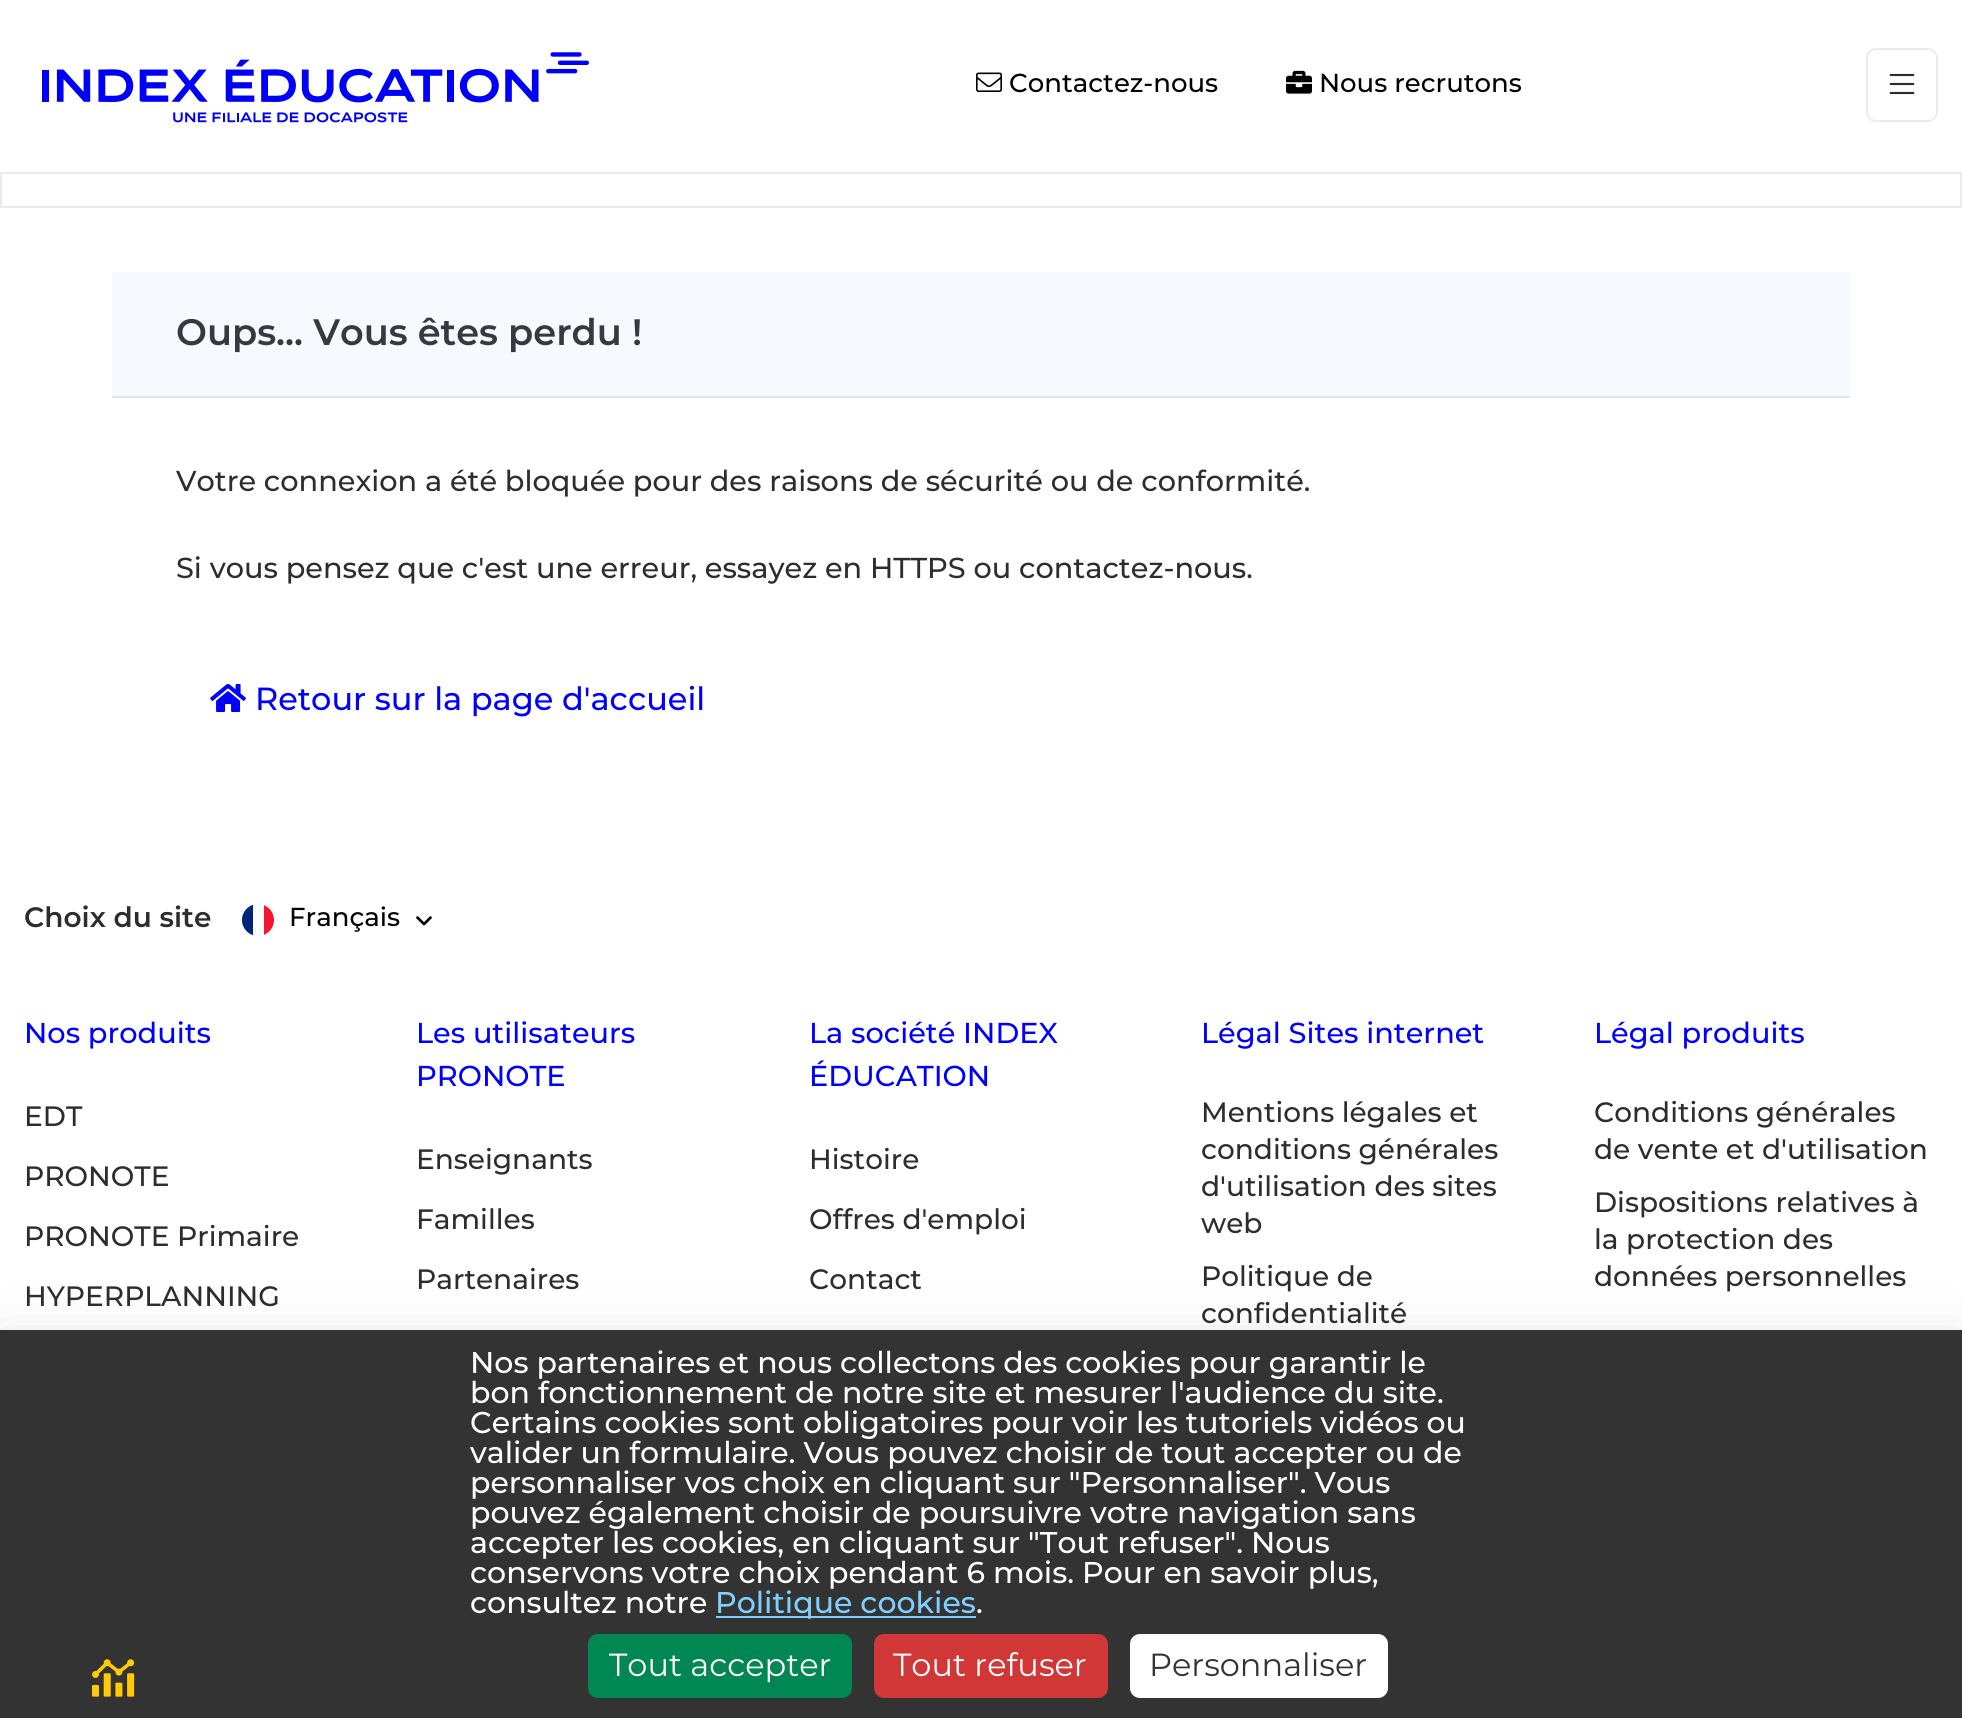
import math
import cairo



def rounded_rect(context, x, y, w, h, r):
    context.new_sub_path()
    for i, (u, v) in enumerate([(x + w - r, y + h - r), (x + r, y + h - r), (x + r, y + r), (x + w - r, y + r)]):
        context.arc(u, v, r, i * math.pi / 2, (i + 1) * math.pi / 2)
    context.close_path()


def draw_shadow(context, x, y, w, h, r, blur, alpha):
    context.push_group_with_content(cairo.Content.ALPHA)
    context.set_operator(cairo.Operator.SOURCE)
    for i in range(15, -16, -2):
        e = blur * i / 6
        if min(w, h) + 2 * e > 0:
            context.set_source_rgba(0, 0, 0, alpha * math.erfc((i - 1) / 8.5) / 2)
            rounded_rect(context, x - e, y - e, w + 2 * e, h + 2 * e, max(0, min(r + e + blur * .6, min(w, h) / 2 + e)))
            context.fill()
    context.mask(context.pop_group())


def draw_image(context, path, x, y, w, h):
    context.save()
    context.set_source_surface(cairo.ImageSurface.create_from_png(path), x, y)
    context.rectangle(x, y, w, h)
    context.fill()
    context.restore()


def draw(context):
    context.set_source_rgb(1, 1, 1)
    context.paint()
    draw_image(context, "images/1.png", 42, 52, 547, 71)
    draw_image(context, "images/2.png", 976, 72, 26, 20)
    draw_image(context, "images/3.png", 1286, 70, 26, 24)
    rounded_rect(context, 1867, 49, 70, 72, 9)
    context.set_source_rgb(235 / 255, 235 / 255, 236 / 255)
    context.stroke()
    draw_image(context, "images/4.png", 1889, 73, 26, 22)
    context.rectangle(1, 173, 1960, 34)
    context.stroke()
    context.set_source_rgba(5 / 255, 5 / 255, 1, 0.03)
    context.rectangle(112, 272, 1738, 124)
    context.fill()
    context.set_source_rgb(228 / 255, 229 / 255, 236 / 255)
    context.rectangle(112, 396, 1738, 2)
    context.fill()
    draw_image(context, "images/5.png", 210, 684, 36, 28)
    context.save()
    rounded_rect(context, 242, 904, 32, 32, 16)
    context.clip()
    context.set_source_rgb(0, 38 / 255, 127 / 255)
    context.rectangle(242, 904, 11, 32)
    context.fill()
    context.set_source_rgb(243 / 255, 24 / 255, 48 / 255)
    context.rectangle(264, 905, 10, 30)
    context.fill()
    context.restore()
    draw_image(context, "images/6.png", 416, 916, 16, 10)
    context.set_source_rgb(0, 0, 0)
    draw_shadow(context, 0, 1350, 1962, 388, 0, 30, 0.17)
    context.set_source_rgb(51 / 255, 51 / 255, 51 / 255)
    context.rectangle(0, 1330, 1962, 388)
    context.fill()
    draw_image(context, "images/7.png", 92, 1659, 43, 38)
    context.set_source_rgb(128 / 255, 208 / 255, 1)
    context.rectangle(716, 1616, 260, 2)
    context.fill()
    context.set_source_rgb(0, 135 / 255, 84 / 255)
    rounded_rect(context, 588, 1634, 264, 64, 10)
    context.fill()
    context.set_source_rgb(209 / 255, 55 / 255, 55 / 255)
    rounded_rect(context, 874, 1634, 234, 64, 10)
    context.fill()
    context.set_source_rgb(1, 1, 1)
    rounded_rect(context, 1130, 1634, 258, 64, 10)
    context.fill()
    context.select_font_face("Montserrat Medium")
    context.set_font_size(26)
    context.set_source_rgb(0, 0, 0)
    context.move_to(1009, 92)
    context.show_text("Contactez-nous")
    context.move_to(1319, 92)
    context.show_text("Nous recrutons")
    context.select_font_face("Montserrat SemiBold")
    context.set_font_size(36.75)
    context.set_source_rgb(52 / 255, 58 / 255, 64 / 255)
    context.move_to(176, 345)
    context.show_text("Oups... Vous êtes perdu !")
    context.select_font_face("Montserrat Medium")
    context.set_font_size(28.8)
    context.set_source_rgb(45 / 255, 45 / 255, 45 / 255)
    context.move_to(176, 491)
    context.show_text("Votre connexion a été bloquée pour des raisons de sécurité ou de conformité.")
    context.move_to(176, 578)
    context.show_text("Si vous pensez que c'est une erreur, essayez en HTTPS ou contactez-nous.")
    context.set_font_size(32)
    context.set_source_rgb(0, 0, 1)
    context.move_to(255, 710)
    context.show_text("Retour sur la page d'accueil")
    context.select_font_face("Montserrat SemiBold")
    context.set_font_size(28)
    context.set_source_rgb(45 / 255, 45 / 255, 45 / 255)
    context.move_to(24, 927)
    context.show_text("Choix du site")
    context.select_font_face("Montserrat Medium")
    context.set_font_size(26)
    context.set_source_rgb(0, 0, 0)
    context.move_to(289, 926)
    context.show_text("Français")
    context.set_font_size(28.8)
    context.set_source_rgb(0, 0, 1)
    context.move_to(24, 1043)
    context.show_text("Nos produits")
    context.set_font_size(28)
    context.set_source_rgb(45 / 255, 45 / 255, 45 / 255)
    context.move_to(24, 1126)
    context.show_text("EDT")
    context.move_to(24, 1186)
    context.show_text("PRONOTE")
    context.move_to(24, 1246)
    context.show_text("PRONOTE Primaire")
    context.move_to(24, 1306)
    context.show_text("HYPERPLANNING")
    context.set_font_size(28.8)
    context.set_source_rgb(0, 0, 1)
    context.move_to(416, 1043)
    context.show_text("Les utilisateurs")
    context.move_to(416, 1086)
    context.show_text("PRONOTE")
    context.set_font_size(28)
    context.set_source_rgb(45 / 255, 45 / 255, 45 / 255)
    context.move_to(416, 1169)
    context.show_text("Enseignants")
    context.move_to(416, 1229)
    context.show_text("Familles")
    context.move_to(416, 1289)
    context.show_text("Partenaires")
    context.set_font_size(28.8)
    context.set_source_rgb(0, 0, 1)
    context.move_to(809, 1043)
    context.show_text("La société INDEX")
    context.move_to(809, 1086)
    context.show_text("ÉDUCATION")
    context.set_font_size(28)
    context.set_source_rgb(45 / 255, 45 / 255, 45 / 255)
    context.move_to(809, 1169)
    context.show_text("Histoire")
    context.move_to(809, 1229)
    context.show_text("Offres d'emploi")
    context.move_to(809, 1289)
    context.show_text("Contact")
    context.set_font_size(28.8)
    context.set_source_rgb(0, 0, 1)
    context.move_to(1201, 1043)
    context.show_text("Légal Sites internet")
    context.set_font_size(28)
    context.set_source_rgb(45 / 255, 45 / 255, 45 / 255)
    context.move_to(1201, 1122)
    context.show_text("Mentions légales et")
    context.move_to(1201, 1159)
    context.show_text("conditions générales")
    context.move_to(1201, 1196)
    context.show_text("d'utilisation des sites")
    context.move_to(1201, 1233)
    context.show_text("web")
    context.move_to(1201, 1286)
    context.show_text("Politique de")
    context.move_to(1201, 1323)
    context.show_text("confidentialité")
    context.set_font_size(28.8)
    context.set_source_rgb(0, 0, 1)
    context.move_to(1594, 1043)
    context.show_text("Légal produits")
    context.set_font_size(28)
    context.set_source_rgb(45 / 255, 45 / 255, 45 / 255)
    context.move_to(1594, 1122)
    context.show_text("Conditions générales")
    context.move_to(1594, 1159)
    context.show_text("de vente et d'utilisation")
    context.move_to(1594, 1212)
    context.show_text("Dispositions relatives à")
    context.move_to(1594, 1249)
    context.show_text("la protection des")
    context.move_to(1594, 1286)
    context.show_text("données personnelles")
    context.set_font_size(30)
    context.set_source_rgb(1, 1, 1)
    context.move_to(470, 1373)
    context.show_text("Nos partenaires et nous collectons des cookies pour garantir le")
    context.move_to(470, 1403)
    context.show_text("bon fonctionnement de notre site et mesurer l'audience du site.")
    context.move_to(470, 1433)
    context.show_text("Certains cookies sont obligatoires pour voir les tutoriels vidéos ou")
    context.move_to(470, 1463)
    context.show_text("valider un formulaire. Vous pouvez choisir de tout accepter ou de")
    context.move_to(470, 1493)
    context.show_text("personnaliser vos choix en cliquant sur \"Personnaliser\". Vous")
    context.move_to(470, 1523)
    context.show_text("pouvez également choisir de poursuivre votre navigation sans")
    context.move_to(470, 1553)
    context.show_text("accepter les cookies, en cliquant sur \"Tout refuser\". Nous")
    context.move_to(470, 1583)
    context.show_text("conservons votre choix pendant 6 mois. Pour en savoir plus,")
    context.move_to(470, 1613)
    context.show_text("consultez notre")
    context.set_source_rgb(128 / 255, 208 / 255, 1)
    context.move_to(715, 1613)
    context.show_text("Politique cookies")
    context.set_source_rgb(1, 1, 1)
    context.move_to(976, 1613)
    context.show_text(".")
    context.select_font_face("Montserrat")
    context.set_font_size(32)
    context.move_to(609, 1676)
    context.show_text("Tout accepter")
    context.move_to(893, 1676)
    context.show_text("Tout refuser")
    context.set_source_rgb(51 / 255, 51 / 255, 51 / 255)
    context.move_to(1149, 1676)
    context.show_text("Personnaliser")


surface = cairo.ImageSurface(cairo.Format.RGB24, 1962, 1718)
context = cairo.Context(surface)
options = cairo.FontOptions()
options.set_hint_metrics(cairo.HintMetrics.OFF)
options.set_hint_style(cairo.HintStyle.NONE)
context.set_font_options(options)
context.set_miter_limit(4)
draw(context)
surface.write_to_png("out.png")
